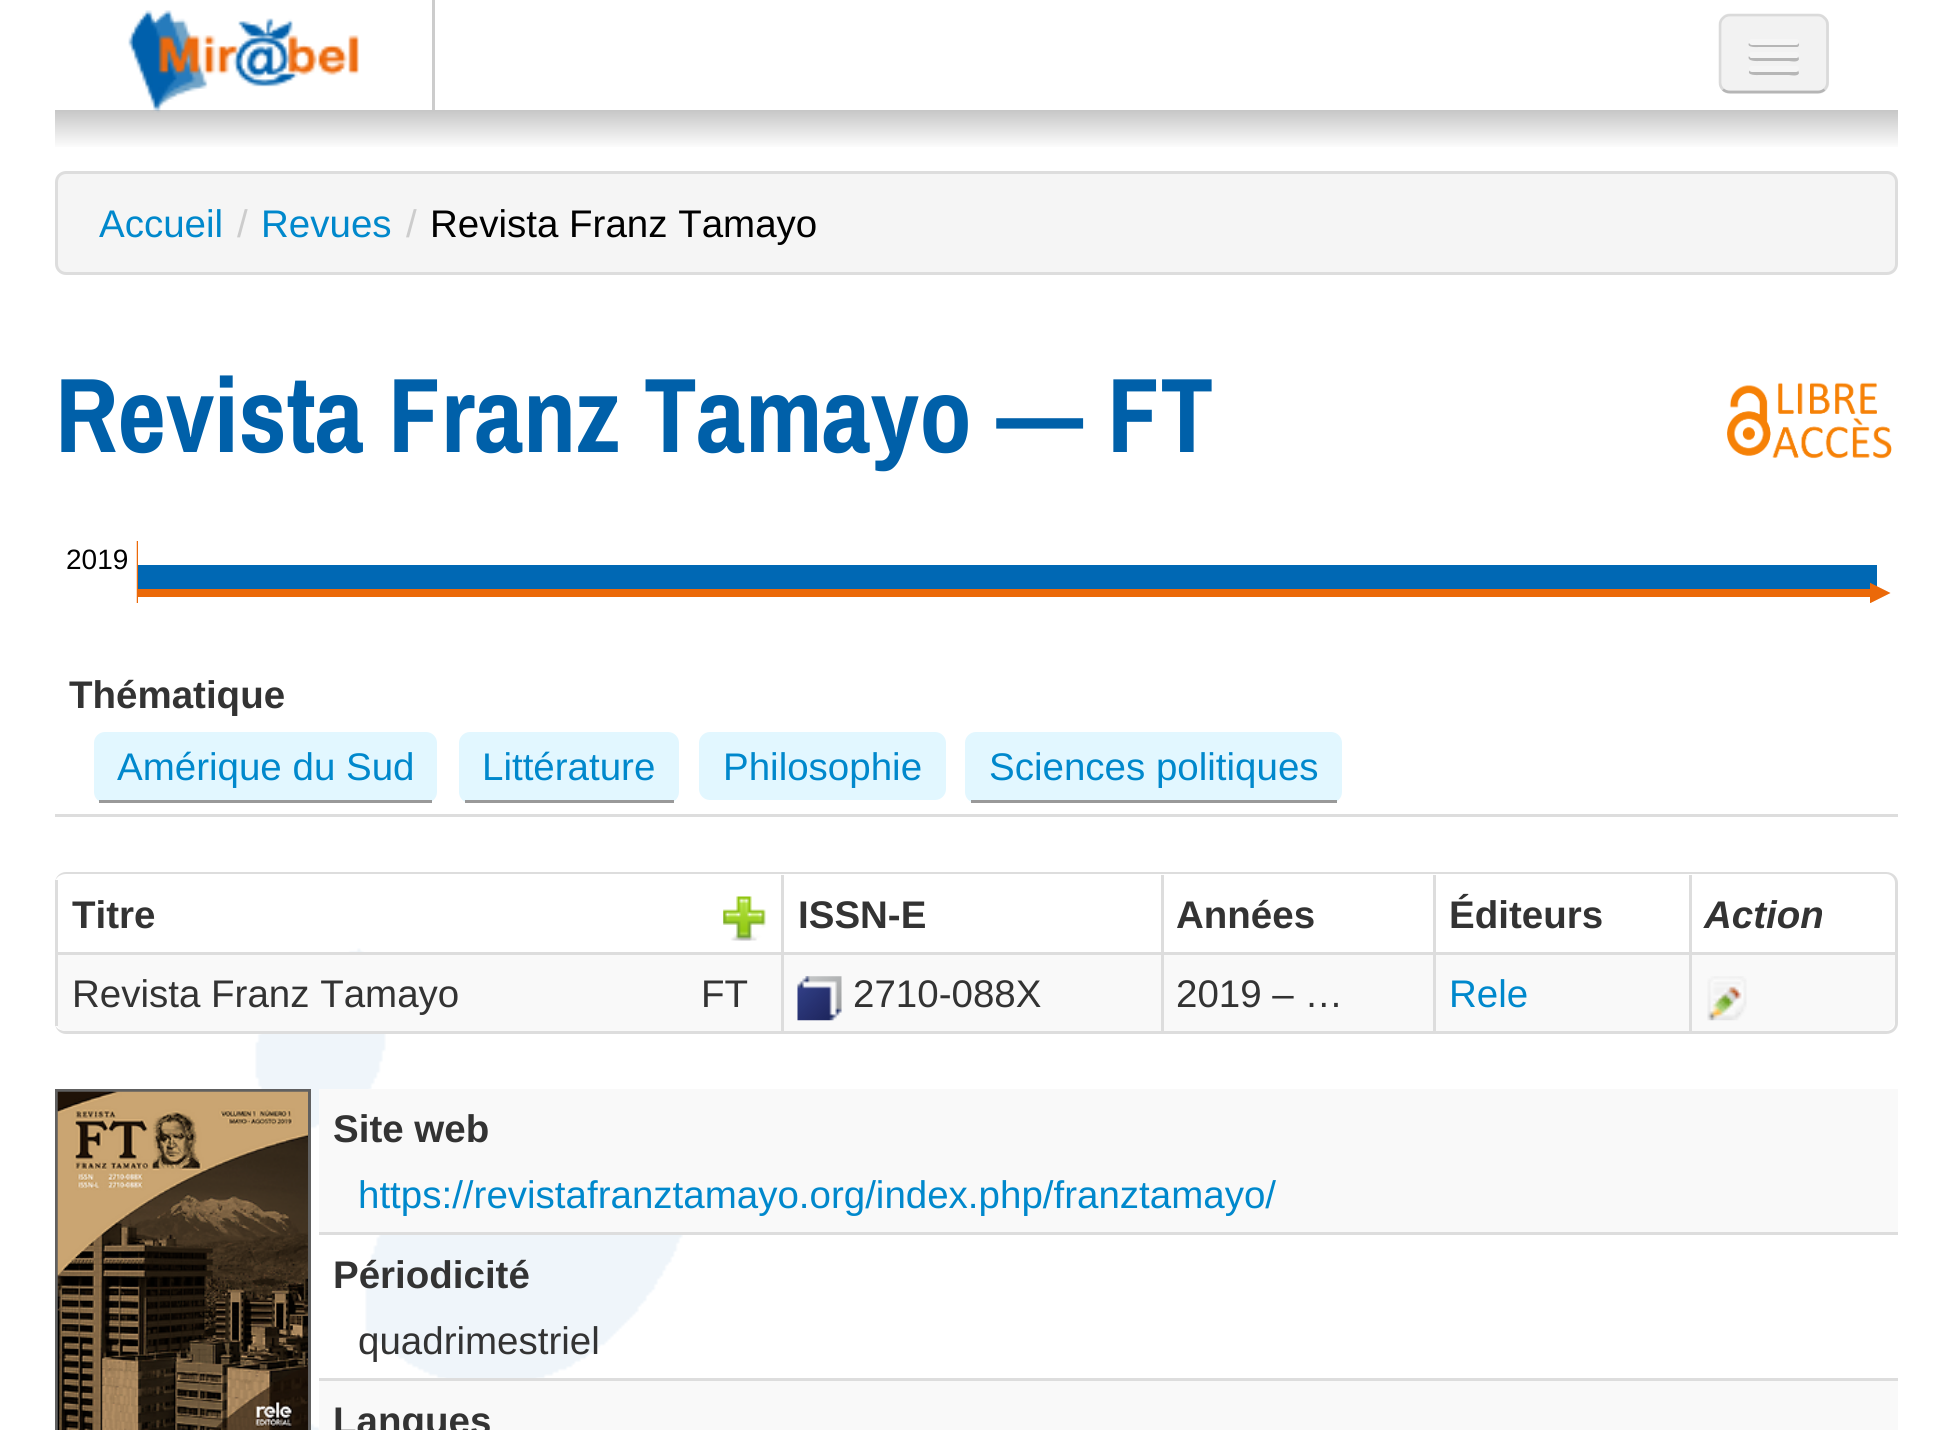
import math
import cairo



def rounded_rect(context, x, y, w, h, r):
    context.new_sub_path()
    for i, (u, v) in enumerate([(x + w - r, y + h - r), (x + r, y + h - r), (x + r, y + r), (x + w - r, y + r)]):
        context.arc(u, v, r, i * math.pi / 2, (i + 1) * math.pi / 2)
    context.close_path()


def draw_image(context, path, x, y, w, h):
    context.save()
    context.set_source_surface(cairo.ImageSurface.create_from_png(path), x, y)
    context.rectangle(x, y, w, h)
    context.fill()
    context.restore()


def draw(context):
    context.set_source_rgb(1, 1, 1)
    context.paint()
    context.set_source_rgb(204 / 255, 204 / 255, 204 / 255)
    context.rectangle(432, 0, 3, 110)
    context.fill()
    gradient = cairo.LinearGradient(976, 110, 976, 149)
    gradient.add_color_stop_rgba(0, 198 / 255, 198 / 255, 198 / 255, 1)
    gradient.add_color_stop_rgba(1, 1, 1, 1, 1)
    context.set_source(gradient)
    context.rectangle(55, 110, 1843, 37)
    context.fill()
    draw_image(context, "images/1.png", 128, 10, 231, 103)
    context.set_source_rgb(242 / 255, 242 / 255, 242 / 255)
    rounded_rect(context, 1719, 14, 110, 80, 11)
    context.fill()
    context.save()
    rounded_rect(context, 1719, 14, 110, 80, 11)
    context.clip()
    context.rectangle(1719, 17, 110, 74)
    context.fill()
    context.restore()
    context.new_path()
    context.move_to(1824.5, 89.5)
    context.curve_to(1823, 91, 1820.5, 92, 1818, 92)
    context.line_to(1730, 92)
    context.curve_to(1727, 92, 1724.5, 91, 1723, 89.5)
    context.set_source_rgba(0, 0, 0, 0.25)
    context.set_line_width(2.8)
    context.stroke()
    context.new_path()
    context.move_to(1723, 89.5)
    context.curve_to(1721, 87.5, 1720, 85, 1720, 82.5)
    context.line_to(1720, 25)
    context.curve_to(1720, 22, 1721, 19.5, 1723, 18)
    context.curve_to(1724.5, 16, 1727, 15, 1730, 15)
    context.line_to(1818, 15)
    context.curve_to(1820.5, 15, 1823, 16, 1824.5, 18)
    context.curve_to(1826.5, 19.5, 1827.5, 22, 1827.5, 25)
    context.line_to(1827.5, 82.5)
    context.curve_to(1827.5, 85, 1826.5, 87.5, 1824.5, 89.5)
    context.set_source_rgba(0, 0, 0, 0.1)
    context.stroke()
    context.set_source_rgb(182 / 255, 182 / 255, 182 / 255)
    context.new_path()
    context.move_to(1749, 43)
    context.curve_to(1746, 48, 1758, 47, 1759, 47)
    context.line_to(1797, 47)
    context.curve_to(1799, 47, 1800, 44, 1798, 42)
    context.curve_to(1798, 43, 1797, 44, 1796, 44)
    context.line_to(1752, 44)
    context.curve_to(1751, 44, 1750, 43, 1749, 43)
    context.close_path()
    context.fill()
    context.set_source_rgb(245 / 255, 245 / 255, 245 / 255)
    rounded_rect(context, 1749, 39, 50, 6, 3)
    context.fill()
    context.set_source_rgb(182 / 255, 182 / 255, 182 / 255)
    context.new_path()
    context.move_to(1749, 56)
    context.curve_to(1746, 62, 1759, 61, 1759, 61)
    context.line_to(1789, 61)
    context.curve_to(1790, 61, 1798, 63, 1799, 59)
    context.line_to(1798, 56)
    context.line_to(1797, 58)
    context.line_to(1751, 58)
    context.close_path()
    context.fill()
    context.set_source_rgb(245 / 255, 245 / 255, 245 / 255)
    rounded_rect(context, 1749, 52, 50, 6, 3)
    context.fill()
    context.set_source_rgb(182 / 255, 182 / 255, 182 / 255)
    context.new_path()
    context.move_to(1750, 70)
    context.curve_to(1745, 76, 1759, 75, 1759, 75)
    context.line_to(1789, 75)
    context.curve_to(1790, 75, 1798, 77, 1799, 73)
    context.line_to(1798, 70)
    context.line_to(1796, 71)
    context.line_to(1751, 71)
    context.close_path()
    context.fill()
    context.set_source_rgb(245 / 255, 245 / 255, 245 / 255)
    rounded_rect(context, 1749, 66, 50, 6, 3)
    context.fill()
    draw_image(context, "images/2.png", 255, 948, 428, 482)
    rounded_rect(context, 56.5, 172.5, 1840, 101, 9.5)
    context.fill_preserve()
    context.set_source_rgb(221 / 255, 221 / 255, 221 / 255)
    context.set_line_width(3)
    context.stroke()
    draw_image(context, "images/3.png", 1727, 382, 165, 77)
    context.save()
    context.rectangle(55, 541, 83, 62)
    context.clip()
    context.new_path()
    context.move_to(138.5, 540.5)
    context.line_to(138.5, 603.5)
    context.set_source_rgb(235 / 255, 105 / 255, 9 / 255)
    context.set_line_width(3.5)
    context.stroke()
    context.restore()
    context.set_source_rgb(235 / 255, 105 / 255, 9 / 255)
    context.rectangle(138, 589, 1739, 8)
    context.fill()
    context.set_source_rgb(0, 104 / 255, 180 / 255)
    context.rectangle(138, 565, 1739, 24)
    context.fill()
    context.save()
    context.rectangle(1870, 582, 21, 21)
    context.clip()
    context.set_source_rgb(235 / 255, 105 / 255, 9 / 255)
    context.new_path()
    context.move_to(1869.5, 582.5)
    context.line_to(1890.5, 593)
    context.line_to(1869.5, 603.5)
    context.close_path()
    context.fill()
    context.restore()
    context.set_source_rgb(221 / 255, 221 / 255, 221 / 255)
    context.rectangle(55, 814, 1843, 3)
    context.fill()
    context.set_source_rgb(226 / 255, 247 / 255, 1)
    rounded_rect(context, 94, 732, 343, 71, 11)
    context.fill()
    context.set_source_rgb(153 / 255, 153 / 255, 153 / 255)
    context.rectangle(99, 800, 333, 3)
    context.fill()
    context.set_source_rgb(226 / 255, 247 / 255, 1)
    rounded_rect(context, 459, 732, 220, 71, 11)
    context.fill()
    context.set_source_rgb(153 / 255, 153 / 255, 153 / 255)
    context.rectangle(465, 800, 209, 3)
    context.fill()
    context.set_source_rgb(226 / 255, 247 / 255, 1)
    rounded_rect(context, 699, 732, 247, 68, 11)
    context.fill()
    rounded_rect(context, 965, 732, 377, 71, 11)
    context.fill()
    context.set_source_rgb(153 / 255, 153 / 255, 153 / 255)
    context.rectangle(971, 800, 366, 3)
    context.fill()
    context.set_source_rgb(221 / 255, 221 / 255, 221 / 255)
    context.set_fill_rule(cairo.FillRule.EVEN_ODD)
    context.new_path()
    context.move_to(66, 872)
    context.line_to(1886, 872)
    context.curve_to(1893, 872, 1898, 877, 1898, 883)
    context.line_to(1898, 1023)
    context.curve_to(1898, 1029, 1893, 1034, 1886, 1034)
    context.line_to(66, 1034)
    context.curve_to(60, 1034, 55, 1029, 55, 1023)
    context.line_to(55, 883)
    context.curve_to(55, 877, 60, 872, 66, 872)
    context.close_path()
    context.move_to(66, 874)
    context.line_to(1886, 874)
    context.curve_to(1891, 874, 1895, 878, 1895, 883)
    context.line_to(1895, 1023)
    context.curve_to(1895, 1028, 1891, 1031, 1886, 1031)
    context.line_to(66, 1031)
    context.curve_to(60, 1031, 55, 1028, 55, 1023)
    context.line_to(55, 883)
    context.curve_to(55, 878, 60, 874, 66, 874)
    context.close_path()
    context.fill()
    context.rectangle(55, 880, 3, 72)
    context.fill()
    draw_image(context, "images/4.png", 723, 896, 43, 45)
    context.rectangle(781, 875, 3, 77)
    context.fill()
    context.rectangle(1161, 875, 3, 77)
    context.fill()
    context.rectangle(1433, 875, 3, 77)
    context.fill()
    context.rectangle(1689, 875, 3, 77)
    context.fill()
    context.set_source_rgb(249 / 255, 249 / 255, 249 / 255)
    context.new_path()
    context.move_to(55, 952)
    context.line_to(781, 952)
    context.line_to(781, 1031)
    context.line_to(66, 1031)
    context.curve_to(60, 1031, 55, 1026, 55, 1020)
    context.close_path()
    context.fill()
    context.set_source_rgb(221 / 255, 221 / 255, 221 / 255)
    context.rectangle(55, 952, 1634, 3)
    context.fill()
    context.rectangle(55, 952, 3, 74)
    context.fill()
    context.set_source_rgb(249 / 255, 249 / 255, 249 / 255)
    context.rectangle(784, 955, 377, 76)
    context.fill()
    context.set_source_rgb(221 / 255, 221 / 255, 221 / 255)
    context.rectangle(781, 952, 3, 79)
    context.fill()
    draw_image(context, "images/5.png", 797, 976, 45, 45)
    context.set_source_rgb(249 / 255, 249 / 255, 249 / 255)
    context.rectangle(1164, 955, 269, 76)
    context.fill()
    context.set_source_rgb(221 / 255, 221 / 255, 221 / 255)
    context.rectangle(1161, 952, 3, 79)
    context.fill()
    context.set_source_rgb(249 / 255, 249 / 255, 249 / 255)
    context.rectangle(1436, 955, 253, 76)
    context.fill()
    context.set_source_rgb(221 / 255, 221 / 255, 221 / 255)
    context.rectangle(1433, 952, 3, 79)
    context.fill()
    context.set_source_rgb(249 / 255, 249 / 255, 249 / 255)
    context.new_path()
    context.move_to(1689, 952)
    context.line_to(1895, 952)
    context.line_to(1895, 1020)
    context.curve_to(1895, 1026, 1890, 1031, 1884, 1031)
    context.line_to(1689, 1031)
    context.close_path()
    context.fill()
    context.set_source_rgb(221 / 255, 221 / 255, 221 / 255)
    context.rectangle(1689, 952, 206, 3)
    context.fill()
    context.rectangle(1689, 952, 3, 79)
    context.fill()
    draw_image(context, "images/6.png", 1707, 976, 40, 45)
    context.rectangle(56.5, 1090.5, 253, 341)
    context.set_source_rgb(96 / 255, 96 / 255, 96 / 255)
    context.stroke()
    draw_image(context, "images/7.png", 57, 1091, 251, 339)
    context.set_source_rgb(221 / 255, 221 / 255, 221 / 255)
    context.rectangle(319, 1232, 1579, 3)
    context.fill()
    context.set_source_rgb(249 / 255, 249 / 255, 249 / 255)
    context.rectangle(319, 1089, 1579, 143)
    context.fill()
    context.set_source_rgb(221 / 255, 221 / 255, 221 / 255)
    context.rectangle(319, 1378, 1579, 3)
    context.fill()
    context.set_source_rgb(249 / 255, 249 / 255, 249 / 255)
    context.rectangle(319, 1381, 1579, 49)
    context.fill()
    context.select_font_face("Liberation Sans")
    context.set_font_size(38.5)
    context.set_source_rgb(0, 136 / 255, 204 / 255)
    context.move_to(99, 237)
    context.show_text("Accueil")
    context.set_source_rgb(204 / 255, 204 / 255, 204 / 255)
    context.move_to(237, 237)
    context.show_text("/")
    context.set_source_rgb(0, 136 / 255, 204 / 255)
    context.move_to(261, 237)
    context.show_text("Revues")
    context.set_source_rgb(204 / 255, 204 / 255, 204 / 255)
    context.move_to(406, 237)
    context.show_text("/")
    context.set_source_rgb(0, 0, 0)
    context.move_to(430, 237)
    context.show_text("Revista Franz Tamayo")
    context.select_font_face("Archivo Narrow", cairo.FontSlant.NORMAL, cairo.FontWeight.BOLD)
    context.set_font_size(105.9)
    context.set_source_rgb(0, 96 / 255, 169 / 255)
    context.move_to(55, 452)
    context.show_text("Revista Franz Tamayo — FT")
    context.select_font_face("Liberation Sans")
    context.set_font_size(28)
    context.set_source_rgb(0, 0, 0)
    context.move_to(66, 569)
    context.show_text("2019")
    context.select_font_face("Liberation Sans", cairo.FontSlant.NORMAL, cairo.FontWeight.BOLD)
    context.set_font_size(38.5)
    context.set_source_rgb(51 / 255, 51 / 255, 51 / 255)
    context.move_to(69, 708)
    context.show_text("Thématique")
    context.select_font_face("Liberation Sans")
    context.set_source_rgb(0, 136 / 255, 204 / 255)
    context.move_to(117, 780)
    context.show_text("Amérique du Sud")
    context.move_to(482, 780)
    context.show_text("Littérature")
    context.move_to(723, 780)
    context.show_text("Philosophie")
    context.move_to(989, 780)
    context.show_text("Sciences politiques")
    context.select_font_face("Liberation Sans", cairo.FontSlant.NORMAL, cairo.FontWeight.BOLD)
    context.set_source_rgb(51 / 255, 51 / 255, 51 / 255)
    context.move_to(72, 928)
    context.show_text("Titre")
    context.move_to(798, 928)
    context.show_text("ISSN-E")
    context.move_to(1176, 928)
    context.show_text("Années")
    context.move_to(1449, 928)
    context.show_text("Éditeurs")
    context.select_font_face("Liberation Sans", cairo.FontSlant.ITALIC, cairo.FontWeight.BOLD)
    context.move_to(1704, 928)
    context.show_text("Action")
    context.select_font_face("Liberation Sans")
    context.move_to(72, 1007)
    context.show_text("Revista Franz Tamayo")
    context.move_to(701, 1007)
    context.show_text("FT")
    context.move_to(853, 1007)
    context.show_text("2710-088X")
    context.move_to(1176, 1007)
    context.show_text("2019 – …")
    context.set_source_rgb(0, 136 / 255, 204 / 255)
    context.move_to(1449, 1007)
    context.show_text("Rele")
    context.select_font_face("Liberation Sans", cairo.FontSlant.NORMAL, cairo.FontWeight.BOLD)
    context.set_source_rgb(51 / 255, 51 / 255, 51 / 255)
    context.move_to(333, 1142)
    context.show_text("Site web")
    context.select_font_face("Liberation Sans")
    context.set_source_rgb(0, 136 / 255, 204 / 255)
    context.move_to(358, 1208)
    context.show_text("https://revistafranztamayo.org/index.php/franztamayo/")
    context.select_font_face("Liberation Sans", cairo.FontSlant.NORMAL, cairo.FontWeight.BOLD)
    context.set_source_rgb(51 / 255, 51 / 255, 51 / 255)
    context.move_to(333, 1288)
    context.show_text("Périodicité")
    context.select_font_face("Liberation Sans")
    context.move_to(358, 1354)
    context.show_text("quadrimestriel")
    context.select_font_face("Liberation Sans", cairo.FontSlant.NORMAL, cairo.FontWeight.BOLD)
    context.move_to(333, 1434)
    context.show_text("Langues")


surface = cairo.ImageSurface(cairo.Format.RGB24, 1951, 1430)
context = cairo.Context(surface)
options = cairo.FontOptions()
options.set_hint_metrics(cairo.HintMetrics.OFF)
options.set_hint_style(cairo.HintStyle.NONE)
context.set_font_options(options)
context.set_miter_limit(4)
draw(context)
surface.write_to_png("out.png")
